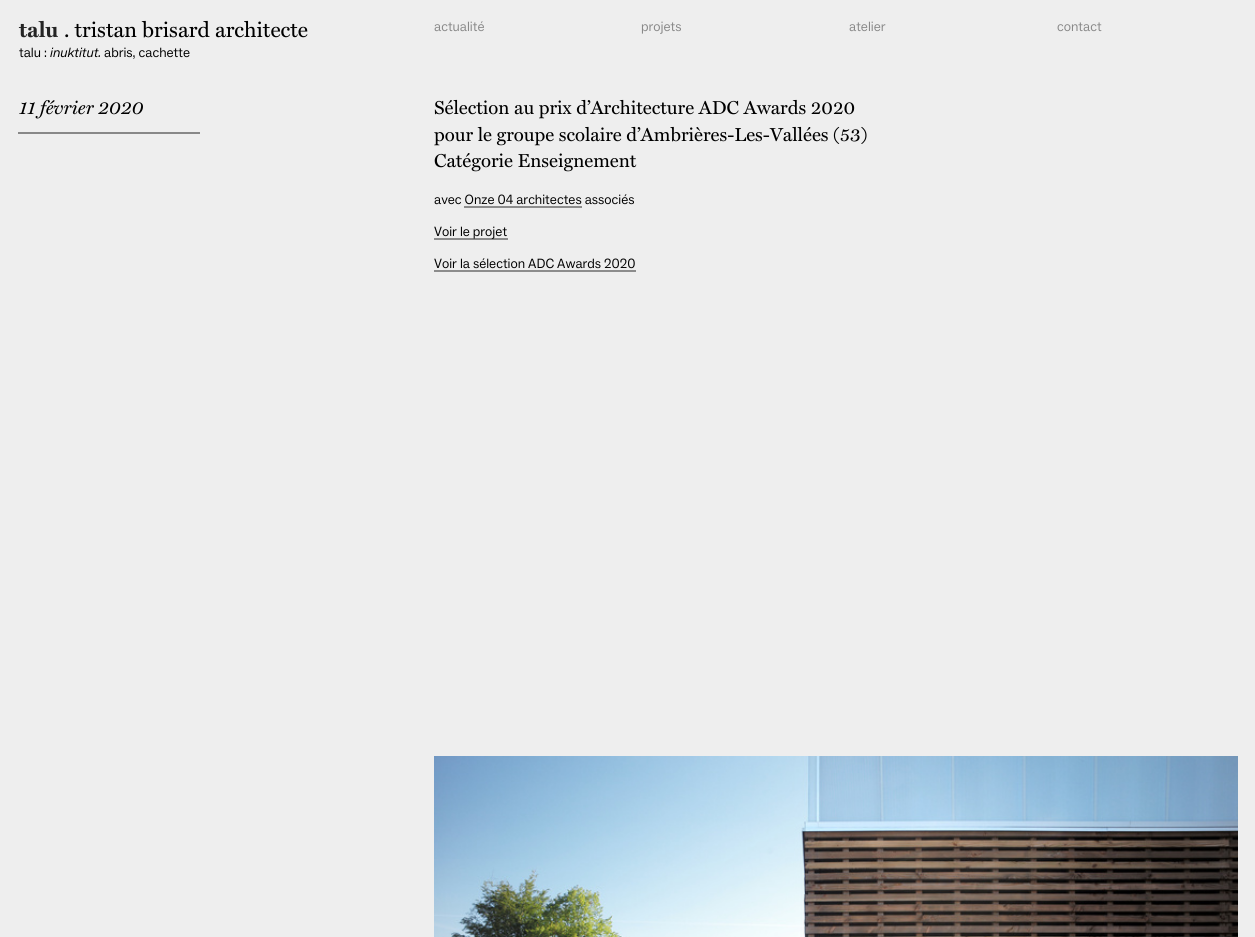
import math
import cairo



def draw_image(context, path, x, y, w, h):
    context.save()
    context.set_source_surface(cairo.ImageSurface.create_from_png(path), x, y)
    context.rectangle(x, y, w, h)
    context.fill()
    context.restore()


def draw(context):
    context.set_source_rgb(238 / 255, 238 / 255, 238 / 255)
    context.paint()
    context.set_source_rgb(136 / 255, 136 / 255, 136 / 255)
    context.rectangle(18, 132, 182, 2)
    context.fill()
    context.set_source_rgb(140 / 255, 140 / 255, 140 / 255)
    context.rectangle(464, 206, 118, 2)
    context.fill()
    context.rectangle(434, 238, 74, 2)
    context.fill()
    context.rectangle(434, 270, 202, 2)
    context.fill()
    draw_image(context, "images/1.png", 434, 756, 804, 181)
    context.select_font_face("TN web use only", cairo.FontSlant.NORMAL, cairo.FontWeight.BOLD)
    context.set_font_size(21.6)
    context.set_source_rgb(36 / 255, 36 / 255, 36 / 255)
    context.move_to(19, 37)
    context.show_text("talu")
    context.select_font_face("TN web use only")
    context.set_source_rgb(0, 0, 0)
    context.move_to(64, 37)
    context.show_text(". tristan brisard architecte")
    context.select_font_face("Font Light")
    context.set_font_size(13.5)
    context.move_to(19, 57)
    context.show_text("talu :")
    context.select_font_face("Font Light", cairo.FontSlant.ITALIC)
    context.move_to(50, 57)
    context.show_text("inuktitut.")
    context.select_font_face("Font Light")
    context.move_to(104, 57)
    context.show_text("abris, cachette")
    context.set_source_rgb(136 / 255, 136 / 255, 136 / 255)
    context.move_to(434, 31)
    context.show_text("actualité")
    context.move_to(641, 31)
    context.show_text("projets")
    context.move_to(849, 31)
    context.show_text("atelier")
    context.move_to(1057, 31)
    context.show_text("contact")
    context.select_font_face("TN web use only", cairo.FontSlant.ITALIC)
    context.set_font_size(18.9)
    context.set_source_rgb(0, 0, 0)
    context.move_to(19, 114)
    context.show_text("11 février 2020")
    context.select_font_face("TN web use only")
    context.move_to(434, 114)
    context.show_text("Sélection au prix d’Architecture ADC Awards 2020")
    context.move_to(434, 141)
    context.show_text("pour le groupe scolaire d’Ambrières-Les-Vallées (53)")
    context.move_to(434, 167)
    context.show_text("Catégorie Enseignement")
    context.select_font_face("Font Light")
    context.set_font_size(13.5)
    context.move_to(434, 204)
    context.show_text("avec Onze 04 architectes associés")
    context.move_to(434, 236)
    context.show_text("Voir le projet")
    context.move_to(434, 268)
    context.show_text("Voir la sélection ADC Awards 2020")


surface = cairo.ImageSurface(cairo.Format.RGB24, 1255, 937)
context = cairo.Context(surface)
options = cairo.FontOptions()
options.set_hint_metrics(cairo.HintMetrics.OFF)
options.set_hint_style(cairo.HintStyle.NONE)
context.set_font_options(options)
context.set_miter_limit(4)
draw(context)
surface.write_to_png("out.png")
